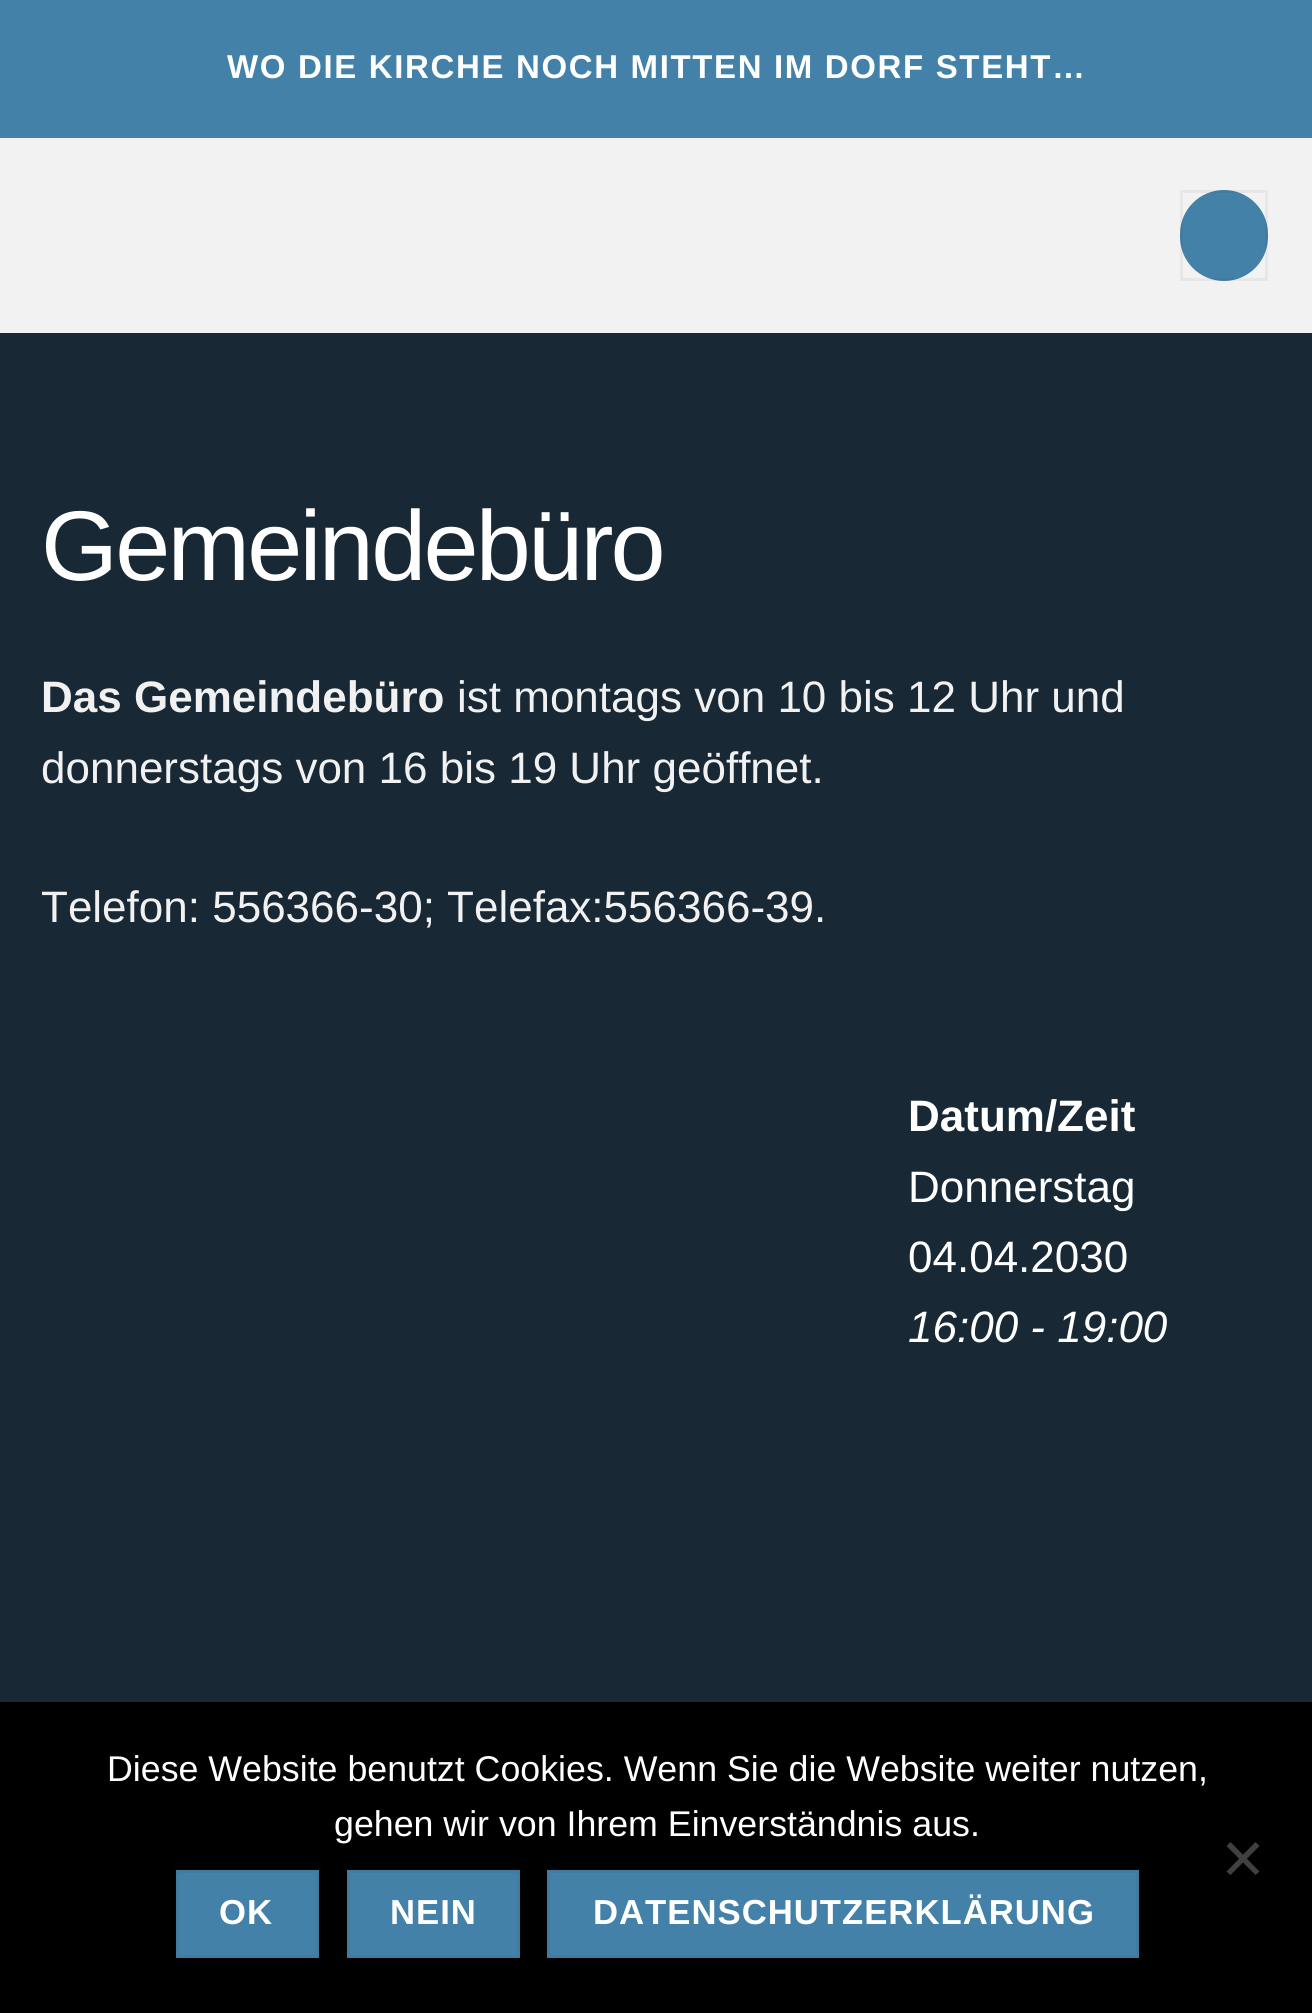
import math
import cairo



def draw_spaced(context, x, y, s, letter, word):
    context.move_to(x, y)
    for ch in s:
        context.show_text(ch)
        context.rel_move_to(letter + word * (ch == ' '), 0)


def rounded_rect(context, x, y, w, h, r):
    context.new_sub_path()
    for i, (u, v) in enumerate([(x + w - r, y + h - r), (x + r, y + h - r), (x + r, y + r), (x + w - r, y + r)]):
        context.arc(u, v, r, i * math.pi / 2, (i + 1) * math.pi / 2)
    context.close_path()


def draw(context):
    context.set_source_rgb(24 / 255, 41 / 255, 53 / 255)
    context.paint()
    context.set_source_rgb(68 / 255, 129 / 255, 168 / 255)
    context.rectangle(0, 0, 1312, 138)
    context.fill()
    context.set_source_rgb(242 / 255, 242 / 255, 242 / 255)
    context.rectangle(0, 138, 1312, 195)
    context.fill()
    context.set_source_rgb(68 / 255, 129 / 255, 168 / 255)
    rounded_rect(context, 1180, 190, 88, 91, 44)
    context.fill()
    context.rectangle(1181.5, 191.5, 85, 88)
    context.set_source_rgba(0, 0, 0, 0.05)
    context.set_line_width(3)
    context.stroke()
    context.set_source_rgb(0, 0, 0)
    context.rectangle(0, 1702, 1312, 311)
    context.fill()
    context.set_source_rgb(64 / 255, 64 / 255, 64 / 255)
    context.new_path()
    context.move_to(1255.5, 1842)
    context.line_to(1259.5, 1846)
    context.line_to(1230.5, 1875)
    context.line_to(1226.5, 1871.5)
    context.close_path()
    context.fill()
    context.new_path()
    context.move_to(1226.5, 1846)
    context.line_to(1230.5, 1842)
    context.line_to(1259.5, 1871.5)
    context.line_to(1255.5, 1875)
    context.close_path()
    context.fill()
    context.set_source_rgb(68 / 255, 129 / 255, 168 / 255)
    context.rectangle(177.5, 1871.5, 140, 85)
    context.fill_preserve()
    context.set_source_rgb(65 / 255, 123 / 255, 160 / 255)
    context.stroke()
    context.set_source_rgb(68 / 255, 129 / 255, 168 / 255)
    context.rectangle(348.5, 1871.5, 170, 85)
    context.fill_preserve()
    context.set_source_rgb(65 / 255, 123 / 255, 160 / 255)
    context.stroke()
    context.set_source_rgb(68 / 255, 129 / 255, 168 / 255)
    context.rectangle(548.5, 1871.5, 589, 85)
    context.fill_preserve()
    context.set_source_rgb(65 / 255, 123 / 255, 160 / 255)
    context.stroke()
    context.select_font_face("Liberation Sans", cairo.FontSlant.NORMAL, cairo.FontWeight.BOLD)
    context.set_font_size(33)
    context.set_source_rgb(1, 1, 1)
    draw_spaced(context, 227, 78, "WO DIE KIRCHE NOCH MITTEN IM DORF STEHT…", 1.65, 0)
    context.select_font_face("Liberation Sans")
    context.set_font_size(99)
    draw_spaced(context, 41, 580, "Gemeindebüro", -2.75, 0)
    context.select_font_face("Liberation Sans", cairo.FontSlant.NORMAL, cairo.FontWeight.BOLD)
    context.set_font_size(44)
    context.set_source_rgb(241 / 255, 241 / 255, 241 / 255)
    context.move_to(41, 712)
    context.show_text("Das Gemeindebüro")
    context.select_font_face("Liberation Sans")
    context.move_to(457, 712)
    context.show_text("ist montags von 10 bis 12 Uhr und")
    context.move_to(41, 783)
    context.show_text("donnerstags von 16 bis 19 Uhr geöffnet.")
    context.move_to(41, 922)
    context.show_text("Telefon: 556366-30; Telefax:556366-39.")
    context.select_font_face("Liberation Sans", cairo.FontSlant.NORMAL, cairo.FontWeight.BOLD)
    context.set_source_rgb(1, 1, 1)
    context.move_to(908, 1131)
    context.show_text("Datum/Zeit")
    context.select_font_face("Liberation Sans")
    context.move_to(908, 1202)
    context.show_text("Donnerstag")
    context.move_to(908, 1272)
    context.show_text("04.04.2030")
    context.select_font_face("Liberation Sans", cairo.FontSlant.ITALIC)
    context.move_to(908, 1342)
    context.show_text("16:00 - 19:00")
    context.select_font_face("Liberation Sans")
    context.set_font_size(35.75)
    context.move_to(107, 1781)
    context.show_text("Diese Website benutzt Cookies. Wenn Sie die Website weiter nutzen,")
    context.move_to(334, 1836)
    context.show_text("gehen wir von Ihrem Einverständnis aus.")
    context.select_font_face("Liberation Sans", cairo.FontSlant.NORMAL, cairo.FontWeight.BOLD)
    context.set_font_size(34.7)
    draw_spaced(context, 219, 1924, "OK", 1, 0)
    draw_spaced(context, 390, 1924, "NEIN", 1, 0)
    draw_spaced(context, 593, 1924, "DATENSCHUTZERKLÄRUNG", 1, 0)


surface = cairo.ImageSurface(cairo.Format.RGB24, 1312, 2013)
context = cairo.Context(surface)
options = cairo.FontOptions()
options.set_hint_metrics(cairo.HintMetrics.OFF)
options.set_hint_style(cairo.HintStyle.NONE)
context.set_font_options(options)
context.set_miter_limit(4)
draw(context)
surface.write_to_png("out.png")
